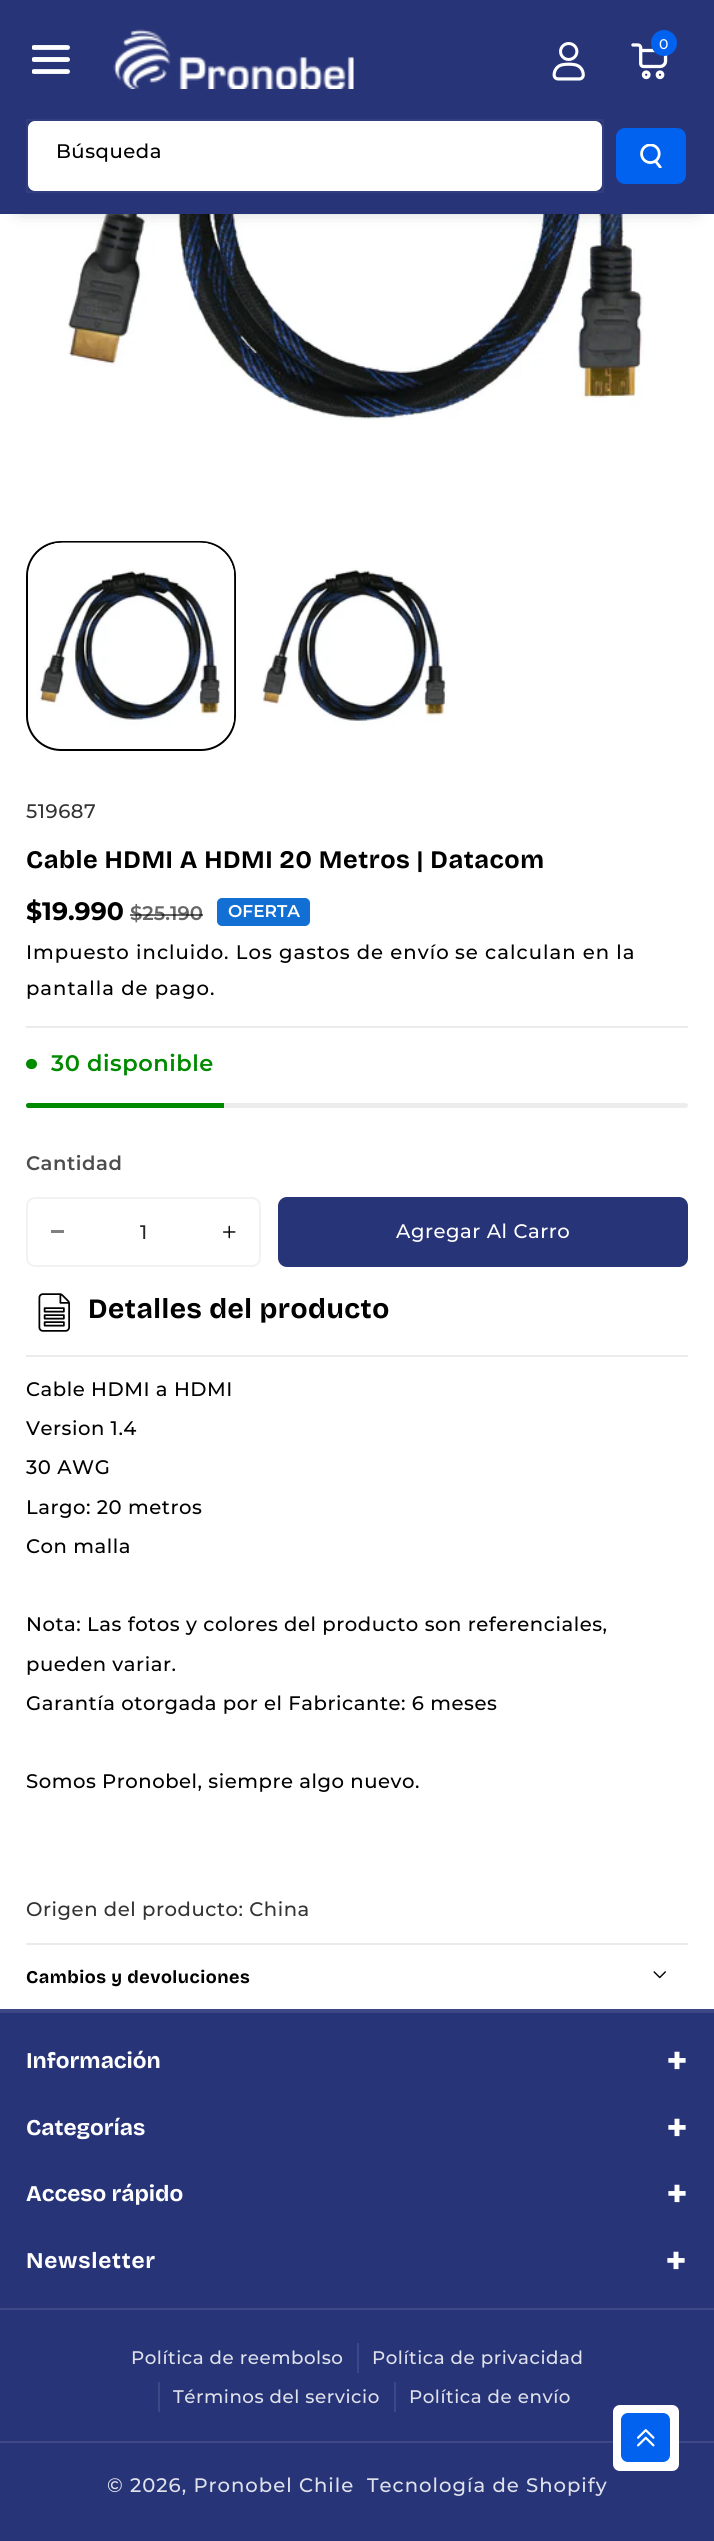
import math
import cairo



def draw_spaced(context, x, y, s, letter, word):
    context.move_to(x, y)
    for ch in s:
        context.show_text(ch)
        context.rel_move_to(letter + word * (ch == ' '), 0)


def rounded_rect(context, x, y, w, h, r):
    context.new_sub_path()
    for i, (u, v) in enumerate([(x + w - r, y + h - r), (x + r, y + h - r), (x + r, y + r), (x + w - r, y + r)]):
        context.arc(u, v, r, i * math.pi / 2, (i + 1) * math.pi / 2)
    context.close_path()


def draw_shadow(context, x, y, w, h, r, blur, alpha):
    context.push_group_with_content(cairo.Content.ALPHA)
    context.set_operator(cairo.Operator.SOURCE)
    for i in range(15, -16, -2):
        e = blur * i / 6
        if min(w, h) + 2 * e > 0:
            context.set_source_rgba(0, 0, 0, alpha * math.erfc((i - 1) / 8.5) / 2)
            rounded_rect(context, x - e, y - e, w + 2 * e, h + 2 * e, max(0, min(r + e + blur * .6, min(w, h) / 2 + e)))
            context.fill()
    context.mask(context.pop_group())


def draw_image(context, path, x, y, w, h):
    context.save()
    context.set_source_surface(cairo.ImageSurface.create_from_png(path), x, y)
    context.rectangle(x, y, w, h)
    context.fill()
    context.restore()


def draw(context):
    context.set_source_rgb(1, 1, 1)
    context.paint()
    draw_image(context, "images/6.png", 67, 214, 577, 206)
    context.set_source_rgb(18 / 255, 18 / 255, 18 / 255)
    draw_shadow(context, 21, 32, 672, 171, 0, 10.5, 0.6)
    context.set_source_rgb(40 / 255, 52 / 255, 120 / 255)
    context.rectangle(0, 0, 714, 214)
    context.fill()
    draw_image(context, "images/1.png", 32, 45, 38, 29)
    draw_image(context, "images/2.png", 113, 29, 241, 60)
    draw_image(context, "images/3.png", 552, 42, 33, 39)
    draw_image(context, "images/4.png", 631, 43, 37, 37)
    context.set_source_rgb(0, 98 / 255, 238 / 255)
    context.arc(664, 43, 13, 0, 2 * math.pi)
    context.fill()
    context.set_source_rgb(1, 1, 1)
    rounded_rect(context, 28, 121, 574, 70, 7)
    context.fill()
    context.rectangle(27, 120, 576, 72)
    context.set_source_rgba(1, 1, 1, 0.05)
    context.stroke()
    context.set_source_rgb(0, 98 / 255, 238 / 255)
    rounded_rect(context, 616, 128, 70, 56, 9)
    context.fill()
    draw_image(context, "images/5.png", 640, 144, 22, 24)
    rounded_rect(context, 27, 542, 208, 208, 34)
    context.set_source_rgb(0, 0, 0)
    context.stroke()
    draw_image(context, "images/7.png", 28, 542, 207, 207)
    draw_image(context, "images/8.png", 261, 568, 186, 157)
    context.set_source_rgb(235 / 255, 235 / 255, 235 / 255)
    context.rectangle(26, 1026, 662, 2)
    context.fill()
    context.set_source_rgb(18 / 255, 111 / 255, 211 / 255)
    rounded_rect(context, 217, 898, 93, 28, 5)
    context.fill()
    context.set_source_rgb(0, 138 / 255, 0)
    rounded_rect(context, 26, 1059, 11, 10, 5)
    context.fill()
    context.set_source_rgb(237 / 255, 237 / 255, 237 / 255)
    rounded_rect(context, 26, 1103, 662, 5, 2.5)
    context.fill()
    context.set_source_rgb(0, 138 / 255, 0)
    context.new_path()
    context.move_to(28.5, 1103)
    context.line_to(224, 1103)
    context.line_to(224, 1108)
    context.line_to(28.5, 1108)
    context.curve_to(27, 1108, 26, 1107, 26, 1105.5)
    context.curve_to(26, 1104, 27, 1103, 28.5, 1103)
    context.close_path()
    context.fill()
    context.set_source_rgb(128 / 255, 128 / 255, 128 / 255)
    context.rectangle(51, 1230, 13, 3)
    context.fill()
    draw_image(context, "images/9.png", 223, 1225, 13, 14)
    rounded_rect(context, 27, 1198, 233, 68, 8)
    context.set_source_rgb(242 / 255, 242 / 255, 242 / 255)
    context.stroke()
    context.set_source_rgb(40 / 255, 52 / 255, 120 / 255)
    rounded_rect(context, 278, 1197, 410, 70, 9)
    context.fill()
    context.set_source_rgb(235 / 255, 235 / 255, 235 / 255)
    context.rectangle(26, 1355, 662, 2)
    context.fill()
    draw_image(context, "images/10.png", 38, 1293, 32, 39)
    context.rectangle(26, 1943, 662, 2)
    context.fill()
    draw_image(context, "images/11.png", 653, 1971, 13, 8)
    context.set_source_rgb(40 / 255, 52 / 255, 120 / 255)
    context.rectangle(0, 2013, 714, 528)
    context.fill()
    context.set_source_rgb(62 / 255, 72 / 255, 134 / 255)
    context.rectangle(0, 2009, 714, 4)
    context.fill()
    context.rectangle(0, 2308, 714, 2)
    context.fill()
    context.rectangle(357, 2343, 2, 30)
    context.fill()
    context.rectangle(158, 2382, 2, 30)
    context.fill()
    context.rectangle(394, 2382, 2, 30)
    context.fill()
    context.rectangle(0, 2441, 714, 2)
    context.fill()
    context.set_source_rgb(1, 1, 1)
    context.new_path()
    context.move_to(620, 2405)
    context.curve_to(616, 2405, 613, 2408, 613, 2412)
    context.line_to(613, 2464)
    context.curve_to(613, 2468, 616, 2471, 620, 2471)
    context.line_to(672, 2471)
    context.curve_to(676, 2471, 679, 2468, 679, 2464)
    context.line_to(679, 2412)
    context.curve_to(679, 2408, 676, 2405, 672, 2405)
    context.close_path()
    context.fill()
    context.set_source_rgb(0, 98 / 255, 238 / 255)
    rounded_rect(context, 621, 2413, 49, 49, 7)
    context.fill()
    draw_image(context, "images/12.png", 637, 2429, 18, 18)
    context.select_font_face("Montserrat Medium")
    context.set_font_size(14)
    context.set_source_rgb(1, 1, 1)
    draw_spaced(context, 659, 49, "0", 0.53, 0)
    context.set_font_size(19.6)
    context.set_source_rgb(0, 0, 0)
    draw_spaced(context, 56, 158, "Búsqueda", 0.53, 0)
    context.set_source_rgb(51 / 255, 51 / 255, 51 / 255)
    draw_spaced(context, 26, 818, "519687", 0.53, 0)
    context.select_font_face("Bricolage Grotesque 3", cairo.FontSlant.NORMAL, cairo.FontWeight.BOLD)
    context.set_font_size(25.2)
    context.set_source_rgb(0, 0, 0)
    draw_spaced(context, 26, 868, "Cable HDMI A HDMI 20 Metros | Datacom", 0.53, 0)
    context.select_font_face("Montserrat", cairo.FontSlant.NORMAL, cairo.FontWeight.BOLD)
    context.move_to(26, 920)
    context.show_text("$19.990")
    context.select_font_face("Montserrat SemiBold")
    context.set_font_size(19.6)
    context.set_source_rgb(102 / 255, 102 / 255, 102 / 255)
    context.move_to(130, 920)
    context.show_text("$25.190")
    context.set_source_rgba(0, 0, 0, 0.6)
    context.rectangle(130, 914, 73, 2)
    context.fill()
    context.set_font_size(17)
    context.set_source_rgb(1, 1, 1)
    context.move_to(228, 917)
    context.show_text("OFERTA")
    context.select_font_face("Montserrat Medium")
    context.set_font_size(19.6)
    context.set_source_rgb(0, 0, 0)
    draw_spaced(context, 26, 959, "Impuesto incluido. Los gastos de envío", 1, 0)
    draw_spaced(context, 455, 959, "se calculan en la", 1, 0)
    draw_spaced(context, 26, 995, "pantalla de pago.", 1, 0)
    context.select_font_face("Montserrat SemiBold")
    context.set_font_size(22.5)
    context.set_source_rgb(0, 138 / 255, 0)
    draw_spaced(context, 51, 1071, "30 disponible", 0.53, 0)
    context.set_font_size(19.6)
    context.set_source_rgb(77 / 255, 77 / 255, 77 / 255)
    draw_spaced(context, 26, 1170, "Cantidad", 0.53, 0)
    context.select_font_face("Montserrat Medium")
    context.set_source_rgb(38 / 255, 38 / 255, 38 / 255)
    context.move_to(140, 1239)
    context.show_text("1")
    context.set_source_rgb(1, 1, 1)
    draw_spaced(context, 396, 1238, "Agregar Al Carro", 0.53, 0)
    context.select_font_face("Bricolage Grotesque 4", cairo.FontSlant.NORMAL, cairo.FontWeight.BOLD)
    context.set_font_size(28)
    context.set_source_rgb(0, 0, 0)
    draw_spaced(context, 88, 1318, "Detalles del producto", 0.53, 0)
    context.select_font_face("Montserrat Medium")
    context.set_font_size(19.6)
    draw_spaced(context, 26, 1396, "Cable HDMI a HDMI", 0.53, 0)
    draw_spaced(context, 26, 1435, "Version 1.4", 0.53, 0)
    draw_spaced(context, 26, 1474, "30 AWG", 0.53, 0)
    draw_spaced(context, 26, 1514, "Largo: 20 metros", 0.53, 0)
    draw_spaced(context, 26, 1553, "Con malla", 0.53, 0)
    draw_spaced(context, 26, 1631, "Nota: Las fotos y colores del producto son referenciales,", 0.53, 0)
    draw_spaced(context, 26, 1671, "pueden variar.", 0.53, 0)
    draw_spaced(context, 26, 1710, "Garantía otorgada por el Fabricante: 6 meses", 0.53, 0)
    draw_spaced(context, 26, 1788, "Somos Pronobel, siempre algo nuevo.", 0.53, 0)
    context.set_source_rgb(51 / 255, 51 / 255, 51 / 255)
    draw_spaced(context, 26, 1916, "Origen del producto: China", 0.53, 0)
    context.select_font_face("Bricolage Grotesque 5", cairo.FontSlant.NORMAL, cairo.FontWeight.BOLD)
    context.set_font_size(17.9)
    context.set_source_rgb(0, 0, 0)
    draw_spaced(context, 26, 1983, "Cambios y devoluciones", 0.53, 0)
    context.select_font_face("Bricolage Grotesque", cairo.FontSlant.NORMAL, cairo.FontWeight.BOLD)
    context.set_font_size(22.5)
    context.set_source_rgb(1, 1, 1)
    context.move_to(26, 2068)
    context.show_text("Información")
    context.select_font_face("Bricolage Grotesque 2", cairo.FontSlant.NORMAL, cairo.FontWeight.BOLD)
    context.set_font_size(42)
    context.move_to(666, 2074)
    context.show_text("+")
    context.select_font_face("Bricolage Grotesque", cairo.FontSlant.NORMAL, cairo.FontWeight.BOLD)
    context.set_font_size(22.5)
    context.move_to(26, 2135)
    context.show_text("Categorías")
    context.select_font_face("Bricolage Grotesque 2", cairo.FontSlant.NORMAL, cairo.FontWeight.BOLD)
    context.set_font_size(42)
    context.move_to(666, 2141)
    context.show_text("+")
    context.select_font_face("Bricolage Grotesque", cairo.FontSlant.NORMAL, cairo.FontWeight.BOLD)
    context.set_font_size(22.5)
    context.move_to(26, 2201)
    context.show_text("Acceso rápido")
    context.select_font_face("Bricolage Grotesque 2", cairo.FontSlant.NORMAL, cairo.FontWeight.BOLD)
    context.set_font_size(42)
    context.move_to(666, 2207)
    context.show_text("+")
    context.select_font_face("Bricolage Grotesque", cairo.FontSlant.NORMAL, cairo.FontWeight.BOLD)
    context.set_font_size(22.5)
    draw_spaced(context, 26, 2268, "Newsletter", 0.75, 0)
    context.select_font_face("Bricolage Grotesque 2", cairo.FontSlant.NORMAL, cairo.FontWeight.BOLD)
    context.set_font_size(42)
    draw_spaced(context, 665, 2274, "+", 0.75, 0)
    context.select_font_face("Montserrat Medium")
    context.set_font_size(18.25)
    context.set_source_rgb(223 / 255, 225 / 255, 235 / 255)
    draw_spaced(context, 131, 2364, "Política de reembolso", 0.53, 0)
    draw_spaced(context, 372, 2364, "Política de privacidad", 0.53, 0)
    draw_spaced(context, 173, 2403, "Términos del servicio", 0.53, 0)
    draw_spaced(context, 409, 2403, "Política de envío", 0.53, 0)
    context.set_font_size(19.6)
    draw_spaced(context, 107, 2492, "© 2026, Pronobel Chile", 1, 0)
    draw_spaced(context, 367, 2492, "Tecnología de Shopify", 1, 0)


surface = cairo.ImageSurface(cairo.Format.RGB24, 714, 2541)
context = cairo.Context(surface)
options = cairo.FontOptions()
options.set_hint_metrics(cairo.HintMetrics.OFF)
options.set_hint_style(cairo.HintStyle.NONE)
context.set_font_options(options)
context.set_miter_limit(4)
draw(context)
surface.write_to_png("out.png")
